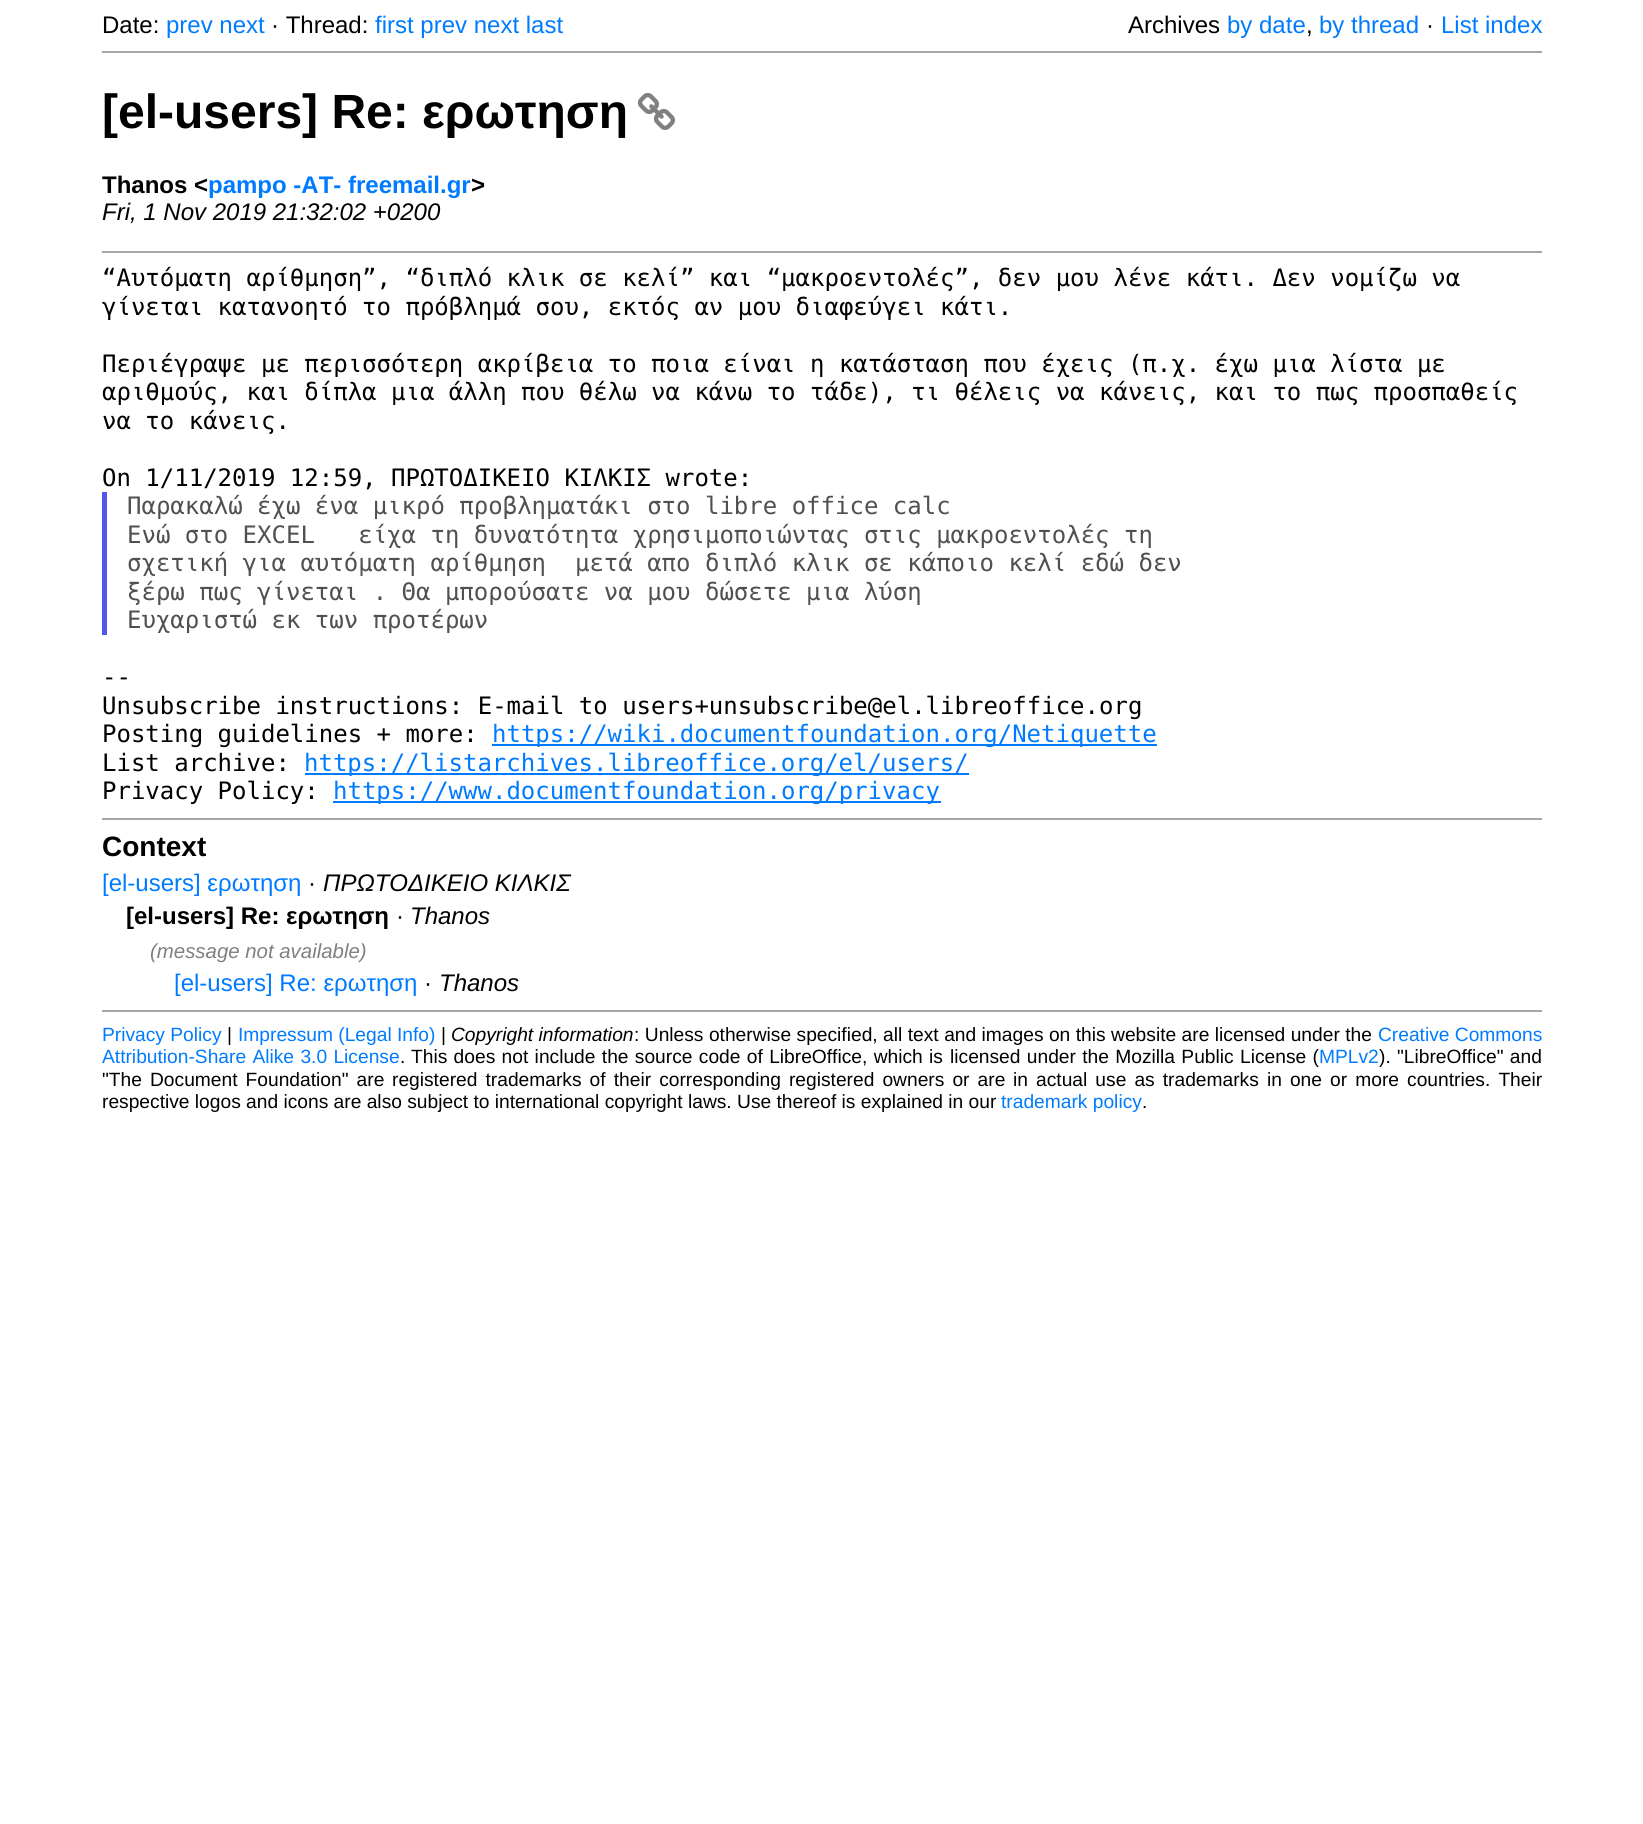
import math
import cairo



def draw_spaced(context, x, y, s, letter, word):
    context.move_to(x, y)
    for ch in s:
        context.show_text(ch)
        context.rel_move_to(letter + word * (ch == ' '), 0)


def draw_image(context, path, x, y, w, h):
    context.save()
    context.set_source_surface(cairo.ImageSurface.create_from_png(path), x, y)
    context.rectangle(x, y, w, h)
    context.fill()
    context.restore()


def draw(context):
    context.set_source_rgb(1, 1, 1)
    context.paint()
    context.set_source_rgb(166 / 255, 166 / 255, 166 / 255)
    context.rectangle(102, 51, 1440, 2)
    context.fill()
    draw_image(context, "images/1.png", 637, 92, 38, 38)
    context.rectangle(102, 251, 1440, 2)
    context.fill()
    context.set_source_rgb(85 / 255, 85 / 255, 238 / 255)
    context.rectangle(102, 492, 5, 143)
    context.fill()
    context.set_source_rgb(0, 123 / 255, 1)
    context.rectangle(492, 744, 665, 2)
    context.fill()
    context.rectangle(305, 773, 664, 2)
    context.fill()
    context.rectangle(333, 801, 608, 2)
    context.fill()
    context.set_source_rgb(166 / 255, 166 / 255, 166 / 255)
    context.rectangle(102, 818, 1440, 2)
    context.fill()
    context.rectangle(102, 1010, 1440, 2)
    context.fill()
    context.select_font_face("Liberation Sans")
    context.set_font_size(24)
    context.set_source_rgb(0, 0, 0)
    context.move_to(102, 33)
    context.show_text("Date:")
    context.set_source_rgb(0, 123 / 255, 1)
    context.move_to(166, 33)
    context.show_text("prev next")
    context.set_source_rgb(0, 0, 0)
    context.move_to(271, 33)
    context.show_text("· Thread:")
    context.set_source_rgb(0, 123 / 255, 1)
    context.move_to(375, 33)
    context.show_text("first prev next last")
    context.set_source_rgb(0, 0, 0)
    context.move_to(1128, 33)
    context.show_text("Archives")
    context.set_source_rgb(0, 123 / 255, 1)
    context.move_to(1227, 33)
    context.show_text("by date")
    context.move_to(1319, 33)
    context.show_text("by thread")
    context.set_source_rgb(0, 0, 0)
    context.move_to(1426, 33)
    context.show_text("·")
    context.set_source_rgb(0, 123 / 255, 1)
    context.move_to(1441, 33)
    context.show_text("List index")
    context.set_source_rgb(0, 0, 0)
    context.move_to(1306, 33)
    context.show_text(",")
    context.select_font_face("Liberation Sans", cairo.FontSlant.NORMAL, cairo.FontWeight.BOLD)
    context.set_font_size(48)
    context.move_to(102, 128)
    context.show_text("[el-users] Re: ερωτηση")
    context.set_font_size(24)
    context.move_to(102, 193)
    context.show_text("Thanos <")
    context.set_source_rgb(0, 123 / 255, 1)
    context.move_to(208, 193)
    context.show_text("pampo -AT- freemail.gr")
    context.set_source_rgb(0, 0, 0)
    context.move_to(471, 193)
    context.show_text(">")
    context.select_font_face("Liberation Sans", cairo.FontSlant.ITALIC)
    context.move_to(102, 220)
    context.show_text("Fri, 1 Nov 2019 21:32:02 +0200")
    context.select_font_face("DejaVu Sans Mono")
    context.move_to(102, 286)
    context.show_text("“Αυτόματη αρίθμηση”, “διπλό κλικ σε κελί” και “μακροεντολές”, δεν μου λένε κάτι. Δεν νομίζω να")
    context.move_to(102, 315)
    context.show_text("γίνεται κατανοητό το πρόβλημά σου, εκτός αν μου διαφεύγει κάτι.")
    context.move_to(102, 372)
    context.show_text("Περιέγραψε με περισσότερη ακρίβεια το ποια είναι η κατάσταση που έχεις (π.χ. έχω μια λίστα με")
    context.move_to(102, 400)
    context.show_text("αριθμούς, και δίπλα μια άλλη που θέλω να κάνω το τάδε), τι θέλεις να κάνεις, και το πως προσπαθείς")
    context.move_to(102, 429)
    context.show_text("να το κάνεις.")
    context.move_to(102, 486)
    context.show_text("On 1/11/2019 12:59, ΠΡΩΤΟΔΙΚΕΙΟ ΚΙΛΚΙΣ wrote:")
    context.set_source_rgb(80 / 255, 80 / 255, 80 / 255)
    context.move_to(127, 514)
    context.show_text("Παρακαλώ έχω ένα μικρό προβληματάκι στο libre office calc")
    context.move_to(127, 543)
    context.show_text("Ενώ στο EXCEL   είχα τη δυνατότητα χρησιμοποιώντας στις μακροεντολές τη")
    context.move_to(127, 571)
    context.show_text("σχετική για αυτόματη αρίθμηση  μετά απο διπλό κλικ σε κάποιο κελί εδώ δεν")
    context.move_to(127, 600)
    context.show_text("ξέρω πως γίνεται . Θα μπορούσατε να μου δώσετε μια λύση")
    context.move_to(127, 628)
    context.show_text("Ευχαριστώ εκ των προτέρων")
    context.set_source_rgb(0, 0, 0)
    context.move_to(102, 685)
    context.show_text("--")
    context.move_to(102, 714)
    context.show_text("Unsubscribe instructions: E-mail to users+unsubscribe@el.libreoffice.org")
    context.move_to(102, 742)
    context.show_text("Posting guidelines + more:")
    context.set_source_rgb(0, 123 / 255, 1)
    context.move_to(492, 742)
    context.show_text("https://wiki.documentfoundation.org/Netiquette")
    context.set_source_rgb(0, 0, 0)
    context.move_to(102, 771)
    context.show_text("List archive:")
    context.set_source_rgb(0, 123 / 255, 1)
    context.move_to(304, 771)
    context.show_text("https://listarchives.libreoffice.org/el/users/")
    context.set_source_rgb(0, 0, 0)
    context.move_to(102, 799)
    context.show_text("Privacy Policy:")
    context.set_source_rgb(0, 123 / 255, 1)
    context.move_to(333, 799)
    context.show_text("https://www.documentfoundation.org/privacy")
    context.select_font_face("Liberation Sans", cairo.FontSlant.NORMAL, cairo.FontWeight.BOLD)
    context.set_font_size(28)
    context.set_source_rgb(0, 0, 0)
    context.move_to(102, 856)
    context.show_text("Context")
    context.select_font_face("Liberation Sans")
    context.set_font_size(24)
    context.set_source_rgb(0, 123 / 255, 1)
    context.move_to(102, 891)
    context.show_text("[el-users] ερωτηση")
    context.set_source_rgb(0, 0, 0)
    context.move_to(308, 891)
    context.show_text("·")
    context.select_font_face("Liberation Sans", cairo.FontSlant.ITALIC)
    context.move_to(323, 891)
    context.show_text("ΠΡΩΤΟΔΙΚΕΙΟ ΚΙΛΚΙΣ")
    context.select_font_face("Liberation Sans", cairo.FontSlant.NORMAL, cairo.FontWeight.BOLD)
    context.move_to(126, 924)
    context.show_text("[el-users] Re: ερωτηση")
    context.select_font_face("Liberation Sans")
    context.move_to(396, 924)
    context.show_text("·")
    context.select_font_face("Liberation Sans", cairo.FontSlant.ITALIC)
    context.move_to(410, 924)
    context.show_text("Thanos")
    context.set_font_size(20.4)
    context.set_source_rgb(128 / 255, 128 / 255, 128 / 255)
    context.move_to(150, 958)
    context.show_text("(message not available)")
    context.select_font_face("Liberation Sans")
    context.set_font_size(24)
    context.set_source_rgb(0, 123 / 255, 1)
    context.move_to(174, 991)
    context.show_text("[el-users] Re: ερωτηση")
    context.set_source_rgb(0, 0, 0)
    context.move_to(424, 991)
    context.show_text("·")
    context.select_font_face("Liberation Sans", cairo.FontSlant.ITALIC)
    context.move_to(439, 991)
    context.show_text("Thanos")
    context.select_font_face("Liberation Sans")
    context.set_font_size(19.2)
    context.set_source_rgb(0, 123 / 255, 1)
    context.move_to(102, 1041)
    context.show_text("Privacy Policy")
    context.set_source_rgb(0, 0, 0)
    context.move_to(227, 1041)
    context.show_text("|")
    context.set_source_rgb(0, 123 / 255, 1)
    context.move_to(238, 1041)
    context.show_text("Impressum (Legal Info)")
    context.set_source_rgb(0, 0, 0)
    context.move_to(441, 1041)
    context.show_text("|")
    context.select_font_face("Liberation Sans", cairo.FontSlant.ITALIC)
    context.move_to(451, 1041)
    context.show_text("Copyright information")
    context.select_font_face("Liberation Sans")
    draw_spaced(context, 634, 1041, ": Unless otherwise specified, all text and images on this website are licensed under the", 0, 0.1)
    context.set_source_rgb(0, 123 / 255, 1)
    context.move_to(1378, 1041)
    context.show_text("Creative Commons")
    draw_spaced(context, 102, 1063, "Attribution-Share Alike 3.0 License", 0, 1)
    context.set_source_rgb(0, 0, 0)
    context.move_to(400, 1063)
    context.show_text(".")
    draw_spaced(context, 411, 1063, "This does not include the source code of LibreOffice, which is", 0, 1)
    draw_spaced(context, 950, 1063, "licensed under the Mozilla Public License (", 0, 1)
    context.set_source_rgb(0, 123 / 255, 1)
    context.move_to(1319, 1063)
    context.show_text("MPLv2")
    context.set_source_rgb(0, 0, 0)
    context.move_to(1379, 1063)
    context.show_text(").")
    draw_spaced(context, 1397, 1063, "\"LibreOffice\" and", 0, 1)
    draw_spaced(context, 102, 1086, "\"The Document Foundation\" are", 0, 2.75)
    draw_spaced(context, 392, 1086, "registered trademarks of their corresponding registered owners or are", 0, 2.75)
    draw_spaced(context, 1013, 1086, "in actual use as trademarks in one or more countries. Their", 0, 2.75)
    context.move_to(102, 1108)
    context.show_text("respective logos and icons are also subject to international copyright laws. Use thereof is explained in our")
    context.set_source_rgb(0, 123 / 255, 1)
    context.move_to(1001, 1108)
    context.show_text("trademark policy")
    context.set_source_rgb(0, 0, 0)
    context.move_to(1142, 1108)
    context.show_text(".")


surface = cairo.ImageSurface(cairo.Format.RGB24, 1643, 1824)
context = cairo.Context(surface)
options = cairo.FontOptions()
options.set_hint_metrics(cairo.HintMetrics.OFF)
options.set_hint_style(cairo.HintStyle.NONE)
context.set_font_options(options)
context.set_miter_limit(4)
draw(context)
surface.write_to_png("out.png")
